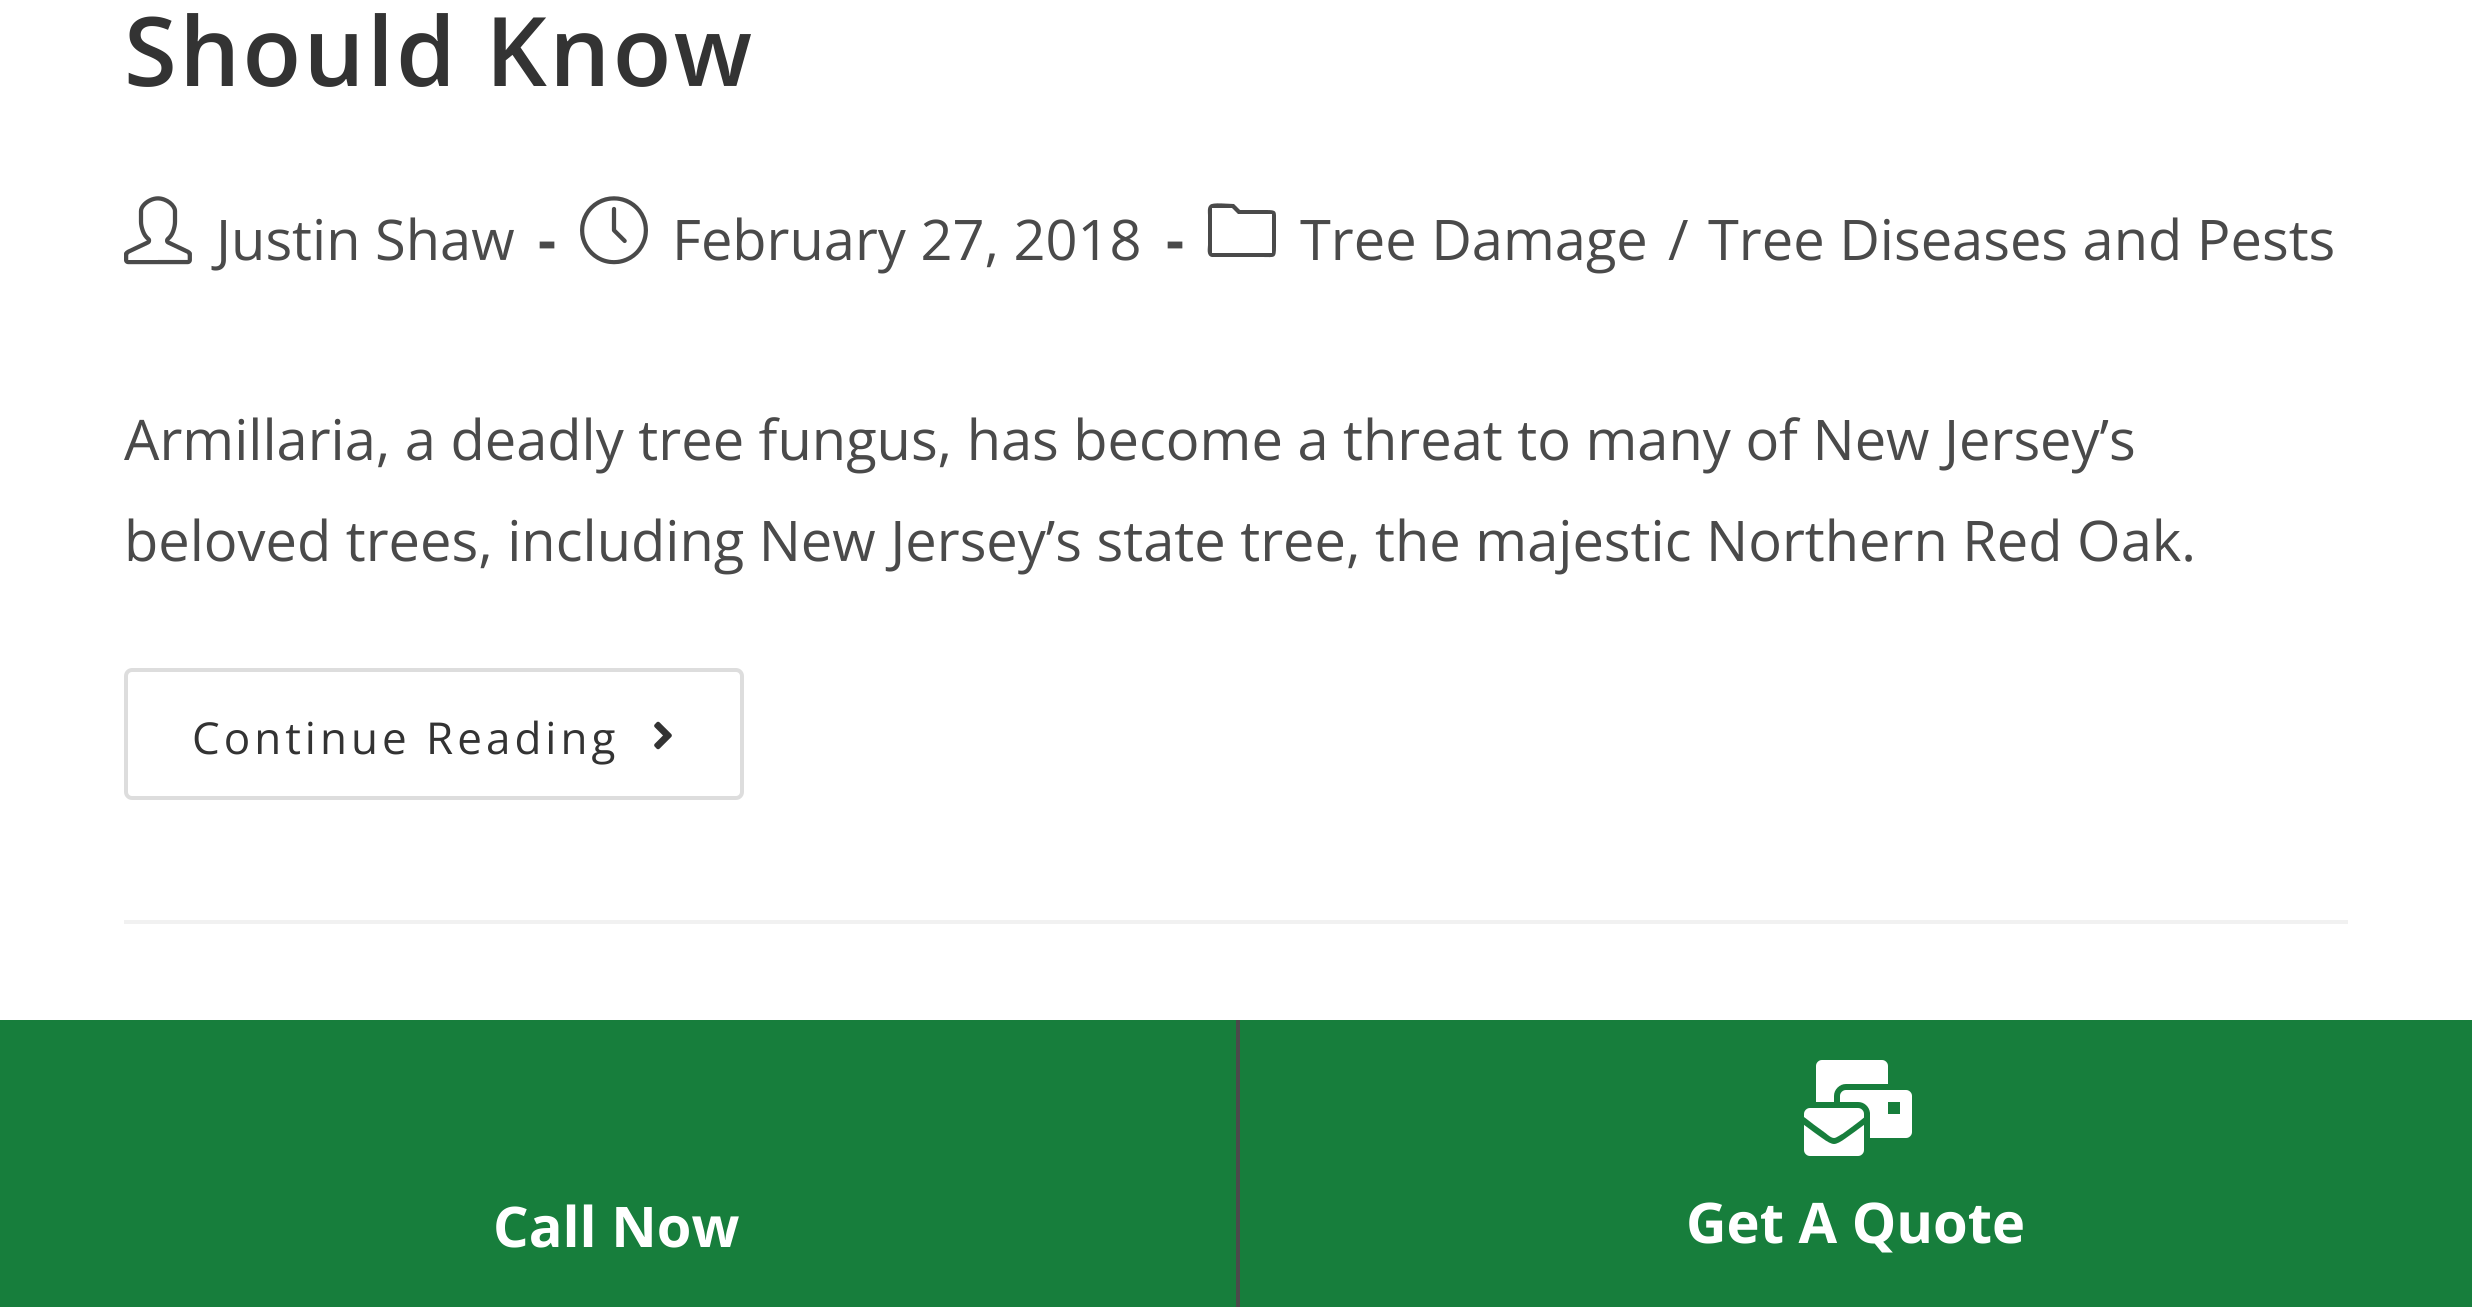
import math
import cairo



def draw_spaced(context, x, y, s, letter, word):
    context.move_to(x, y)
    for ch in s:
        context.show_text(ch)
        context.rel_move_to(letter + word * (ch == ' '), 0)


def rounded_rect(context, x, y, w, h, r):
    context.new_sub_path()
    for i, (u, v) in enumerate([(x + w - r, y + h - r), (x + r, y + h - r), (x + r, y + r), (x + w - r, y + r)]):
        context.arc(u, v, r, i * math.pi / 2, (i + 1) * math.pi / 2)
    context.close_path()


def draw_image(context, path, x, y, w, h):
    context.save()
    context.set_source_surface(cairo.ImageSurface.create_from_png(path), x, y)
    context.rectangle(x, y, w, h)
    context.fill()
    context.restore()


def draw(context):
    context.set_source_rgb(1, 1, 1)
    context.paint()
    context.set_source_rgb(241 / 255, 241 / 255, 241 / 255)
    context.rectangle(124, 920, 2224, 4)
    context.fill()
    draw_image(context, "images/1.png", 124, 196, 68, 69)
    draw_image(context, "images/2.png", 580, 196, 68, 69)
    context.set_source_rgb(74 / 255, 74 / 255, 74 / 255)
    context.new_path()
    context.move_to(1232, 208)
    context.line_to(1238, 214)
    context.line_to(1272, 214)
    context.line_to(1272, 253)
    context.line_to(1212, 253)
    context.line_to(1212, 208)
    context.close_path()
    context.move_to(1234, 204)
    context.curve_to(1229, 204, 1212, 202, 1210, 205)
    context.curve_to(1207, 207, 1208, 213, 1208, 215)
    context.line_to(1208, 245)
    context.curve_to(1208, 248, 1206, 256, 1212, 257)
    context.line_to(1262, 257)
    context.curve_to(1275, 257, 1276, 259, 1276, 246)
    context.line_to(1276, 221)
    context.curve_to(1276, 211, 1277, 210, 1266, 210)
    context.line_to(1240, 210)
    context.close_path()
    context.fill()
    rounded_rect(context, 126, 670, 616, 128, 6)
    context.set_source_rgb(221 / 255, 221 / 255, 221 / 255)
    context.set_line_width(4)
    context.stroke()
    draw_image(context, "images/3.png", 654, 721, 18, 29)
    context.set_source_rgb(23 / 255, 126 / 255, 60 / 255)
    context.rectangle(0, 1020, 2472, 287)
    context.fill()
    context.set_source_rgb(74 / 255, 74 / 255, 74 / 255)
    context.rectangle(1236, 1020, 4, 287)
    context.fill()
    draw_image(context, "images/4.png", 1804, 1060, 108, 96)
    context.select_font_face("Open Sans SemiBold")
    context.set_font_size(96)
    context.set_source_rgb(51 / 255, 51 / 255, 51 / 255)
    draw_spaced(context, 124, 86, "Should Know", 2.4, 0)
    context.select_font_face("Open Sans")
    context.set_font_size(56)
    context.set_source_rgb(74 / 255, 74 / 255, 74 / 255)
    context.move_to(216, 260)
    context.show_text("Justin Shaw")
    context.select_font_face("Open Sans", cairo.FontSlant.NORMAL, cairo.FontWeight.BOLD)
    context.move_to(538, 260)
    context.show_text("-")
    context.select_font_face("Open Sans")
    context.move_to(672, 260)
    context.show_text("February 27, 2018")
    context.select_font_face("Open Sans", cairo.FontSlant.NORMAL, cairo.FontWeight.BOLD)
    context.move_to(1166, 260)
    context.show_text("-")
    context.select_font_face("Open Sans")
    context.move_to(1300, 260)
    context.show_text("Tree Damage")
    context.move_to(1668, 260)
    context.show_text("/")
    context.move_to(1708, 260)
    context.show_text("Tree Diseases and Pests")
    context.move_to(124, 460)
    context.show_text("Armillaria, a deadly tree fungus, has become a threat to many of New Jersey’s")
    context.move_to(124, 561)
    context.show_text("beloved trees, including New Jersey’s state tree, the majestic Northern Red Oak.")
    context.set_font_size(44)
    context.set_source_rgb(51 / 255, 51 / 255, 51 / 255)
    draw_spaced(context, 192, 754, "Continue Reading", 4, 0)
    context.select_font_face("Open Sans", cairo.FontSlant.NORMAL, cairo.FontWeight.BOLD)
    context.set_font_size(56)
    context.set_source_rgb(1, 1, 1)
    context.move_to(493, 1247)
    context.show_text("Call Now")
    context.move_to(1686, 1243)
    context.show_text("Get A Quote")


surface = cairo.ImageSurface(cairo.Format.RGB24, 2472, 1307)
context = cairo.Context(surface)
options = cairo.FontOptions()
options.set_hint_metrics(cairo.HintMetrics.OFF)
options.set_hint_style(cairo.HintStyle.NONE)
context.set_font_options(options)
context.set_miter_limit(4)
draw(context)
surface.write_to_png("out.png")
